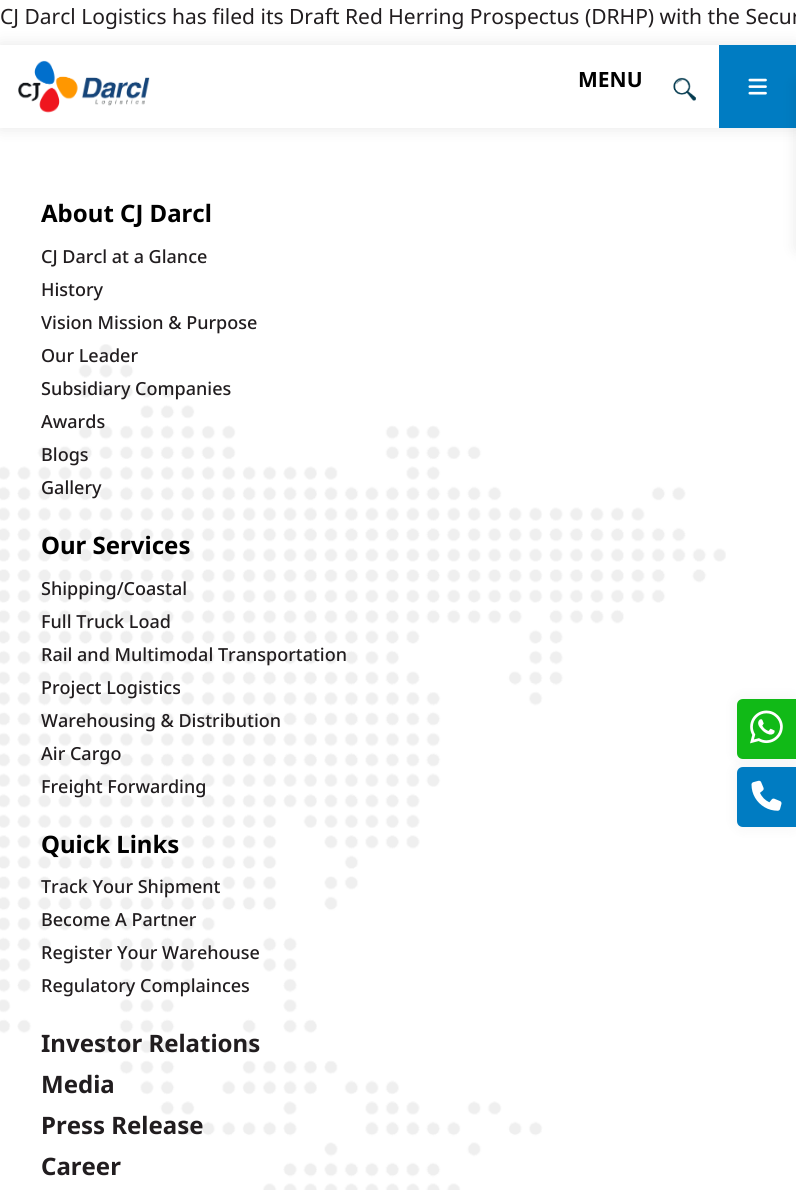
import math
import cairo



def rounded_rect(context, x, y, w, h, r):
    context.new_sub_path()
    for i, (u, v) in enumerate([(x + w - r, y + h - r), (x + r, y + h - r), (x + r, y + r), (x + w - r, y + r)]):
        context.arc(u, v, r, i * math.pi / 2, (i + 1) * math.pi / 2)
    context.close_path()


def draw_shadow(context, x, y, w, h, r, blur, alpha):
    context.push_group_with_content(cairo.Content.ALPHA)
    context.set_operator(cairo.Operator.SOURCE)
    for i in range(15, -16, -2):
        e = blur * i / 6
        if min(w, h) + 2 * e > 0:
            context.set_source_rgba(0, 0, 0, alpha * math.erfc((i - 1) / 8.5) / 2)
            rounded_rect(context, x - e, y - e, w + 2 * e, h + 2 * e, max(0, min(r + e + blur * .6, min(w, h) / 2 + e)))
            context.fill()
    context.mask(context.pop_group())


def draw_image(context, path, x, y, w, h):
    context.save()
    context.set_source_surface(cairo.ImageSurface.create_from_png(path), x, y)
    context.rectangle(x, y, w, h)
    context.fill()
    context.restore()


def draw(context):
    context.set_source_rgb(1, 1, 1)
    context.paint()
    context.set_source_rgb(0, 0, 0)
    draw_shadow(context, 0, 45, 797, 83, 0, 7.5, 0.1)
    context.set_source_rgb(1, 1, 1)
    context.rectangle(0, 45, 719, 83)
    context.fill()
    draw_image(context, "images/1.png", 18, 60, 132, 53)
    draw_image(context, "images/2.png", 673, 77, 23, 24)
    context.set_source_rgb(0, 124 / 255, 194 / 255)
    context.rectangle(719, 45, 77, 83)
    context.fill()
    draw_image(context, "images/3.png", 748, 78, 19, 17)
    context.set_source_rgb(0, 0, 0)
    draw_shadow(context, 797, 83, 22, 166, 0, 7.5, 0.1)
    draw_image(context, "images/4.png", 0, 344, 726, 846)
    draw_shadow(context, 737, 699, 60, 60, 6, 7.5, 0.05)
    context.set_source_rgb(17 / 255, 186 / 255, 23 / 255)
    context.new_path()
    context.move_to(743, 699)
    context.line_to(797, 699)
    context.line_to(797, 759)
    context.line_to(743, 759)
    context.curve_to(739.5, 759, 737, 756.5, 737, 753)
    context.line_to(737, 705)
    context.curve_to(737, 701.5, 739.5, 699, 743, 699)
    context.close_path()
    context.fill()
    context.set_source_rgb(0, 0, 0)
    draw_shadow(context, 737, 767, 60, 60, 6, 7.5, 0.05)
    draw_image(context, "images/5.png", 750, 710, 33, 34)
    context.set_source_rgb(0, 124 / 255, 194 / 255)
    context.new_path()
    context.move_to(743, 767)
    context.line_to(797, 767)
    context.line_to(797, 827)
    context.line_to(743, 827)
    context.curve_to(739.5, 827, 737, 824.5, 737, 821)
    context.line_to(737, 773)
    context.curve_to(737, 769.5, 739.5, 767, 743, 767)
    context.close_path()
    context.fill()
    draw_image(context, "images/6.png", 751, 780, 31, 31)
    context.select_font_face("Noto Sans")
    context.set_font_size(21)
    context.set_source_rgb(33 / 255, 29 / 255, 31 / 255)
    context.move_to(0, 24)
    context.show_text("CJ Darcl Logistics has filed its Draft Red Herring Prospectus (DRHP) with the Secur")
    context.select_font_face("Noto Sans", cairo.FontSlant.NORMAL, cairo.FontWeight.BOLD)
    context.set_source_rgb(0, 0, 0)
    context.move_to(578, 87)
    context.show_text("MENU")
    context.set_font_size(24)
    context.move_to(41, 222)
    context.show_text("About CJ Darcl")
    context.select_font_face("Noto Sans Medium")
    context.set_font_size(18)
    context.set_source_rgb(33 / 255, 29 / 255, 31 / 255)
    context.move_to(41, 263)
    context.show_text("CJ Darcl at a Glance")
    context.move_to(41, 296)
    context.show_text("History")
    context.move_to(41, 329)
    context.show_text("Vision Mission & Purpose")
    context.move_to(41, 362)
    context.show_text("Our Leader")
    context.move_to(41, 395)
    context.show_text("Subsidiary Companies")
    context.move_to(41, 428)
    context.show_text("Awards")
    context.move_to(41, 461)
    context.show_text("Blogs")
    context.move_to(41, 494)
    context.show_text("Gallery")
    context.select_font_face("Noto Sans", cairo.FontSlant.NORMAL, cairo.FontWeight.BOLD)
    context.set_font_size(24)
    context.set_source_rgb(0, 0, 0)
    context.move_to(41, 554)
    context.show_text("Our Services")
    context.select_font_face("Noto Sans Medium")
    context.set_font_size(18)
    context.set_source_rgb(33 / 255, 29 / 255, 31 / 255)
    context.move_to(41, 595)
    context.show_text("Shipping/Coastal")
    context.move_to(41, 628)
    context.show_text("Full Truck Load")
    context.move_to(41, 661)
    context.show_text("Rail and Multimodal Transportation")
    context.move_to(41, 694)
    context.show_text("Project Logistics")
    context.move_to(41, 727)
    context.show_text("Warehousing & Distribution")
    context.move_to(41, 760)
    context.show_text("Air Cargo")
    context.move_to(41, 793)
    context.show_text("Freight Forwarding")
    context.select_font_face("Noto Sans", cairo.FontSlant.NORMAL, cairo.FontWeight.BOLD)
    context.set_font_size(24)
    context.set_source_rgb(0, 0, 0)
    context.move_to(41, 853)
    context.show_text("Quick Links")
    context.select_font_face("Noto Sans Medium")
    context.set_font_size(18)
    context.set_source_rgb(33 / 255, 29 / 255, 31 / 255)
    context.move_to(41, 893)
    context.show_text("Track Your Shipment")
    context.move_to(41, 926)
    context.show_text("Become A Partner")
    context.move_to(41, 959)
    context.show_text("Register Your Warehouse")
    context.move_to(41, 992)
    context.show_text("Regulatory Complainces")
    context.select_font_face("Noto Sans", cairo.FontSlant.NORMAL, cairo.FontWeight.BOLD)
    context.set_font_size(24)
    context.move_to(41, 1052)
    context.show_text("Investor Relations")
    context.move_to(41, 1093)
    context.show_text("Media")
    context.move_to(41, 1134)
    context.show_text("Press Release")
    context.move_to(41, 1175)
    context.show_text("Career")


surface = cairo.ImageSurface(cairo.Format.RGB24, 796, 1190)
context = cairo.Context(surface)
options = cairo.FontOptions()
options.set_hint_metrics(cairo.HintMetrics.OFF)
options.set_hint_style(cairo.HintStyle.NONE)
context.set_font_options(options)
context.set_miter_limit(4)
draw(context)
surface.write_to_png("out.png")
